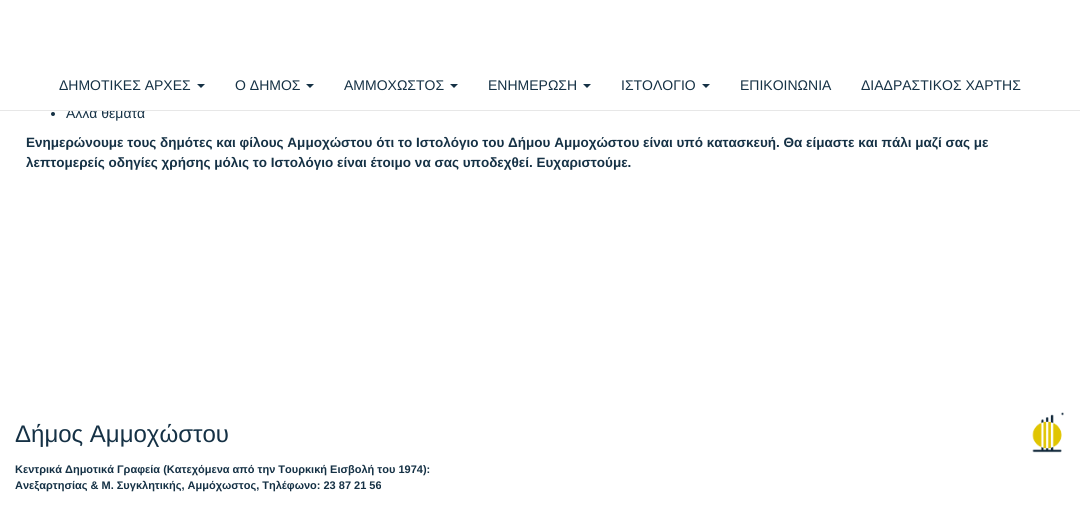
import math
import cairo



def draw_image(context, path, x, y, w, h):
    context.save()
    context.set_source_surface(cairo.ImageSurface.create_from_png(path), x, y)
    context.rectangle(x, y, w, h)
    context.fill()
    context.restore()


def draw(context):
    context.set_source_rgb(1, 1, 1)
    context.paint()
    context.set_source_rgb(21 / 255, 49 / 255, 69 / 255)
    context.new_path()
    context.move_to(197, 84)
    context.line_to(205, 84)
    context.line_to(201, 88)
    context.close_path()
    context.fill()
    context.new_path()
    context.move_to(306, 84)
    context.line_to(314, 84)
    context.line_to(310, 88)
    context.close_path()
    context.fill()
    context.new_path()
    context.move_to(450, 84)
    context.line_to(458, 84)
    context.line_to(454, 88)
    context.close_path()
    context.fill()
    context.new_path()
    context.move_to(583, 84)
    context.line_to(591, 84)
    context.line_to(587, 88)
    context.close_path()
    context.fill()
    context.new_path()
    context.move_to(702, 84)
    context.line_to(710, 84)
    context.line_to(706, 88)
    context.close_path()
    context.fill()
    context.arc(53, 114, 2, 0, 2 * math.pi)
    context.fill()
    draw_image(context, "images/1.png", 1032, 412, 32, 41)
    context.select_font_face("Liberation Sans")
    context.set_font_size(14)
    context.move_to(59, 90)
    context.show_text("ΔΗΜΟΤΙΚΕΣ ΑΡΧΕΣ")
    context.move_to(235, 90)
    context.show_text("Ο ΔΗΜΟΣ")
    context.move_to(344, 90)
    context.show_text("ΑΜΜΟΧΩΣΤΟΣ")
    context.move_to(488, 90)
    context.show_text("ΕΝΗΜΕΡΩΣΗ")
    context.move_to(621, 90)
    context.show_text("ΙΣΤΟΛΟΓΙΟ")
    context.move_to(740, 90)
    context.show_text("ΕΠΙΚΟΙΝΩΝΙΑ")
    context.move_to(861, 90)
    context.show_text("ΔΙΑΔΡΑΣΤΙΚΟΣ ΧΑΡΤΗΣ")
    context.move_to(66, 118)
    context.show_text("Άλλα θέματα")
    context.set_source_rgb(231 / 255, 231 / 255, 231 / 255)
    context.rectangle(0, 110, 1080, 1)
    context.fill()
    context.set_source_rgb(1, 1, 1)
    context.rectangle(66, 107, 48, 3)
    context.fill()
    context.select_font_face("Liberation Sans", cairo.FontSlant.NORMAL, cairo.FontWeight.BOLD)
    context.set_font_size(13.5)
    context.set_source_rgb(21 / 255, 49 / 255, 69 / 255)
    context.move_to(26, 147)
    context.show_text("Ενημερώνουμε τους δημότες και φίλους Αμμοχώστου ότι το Ιστολόγιο του Δήμου Αμμοχώστου είναι υπό κατασκευή. Θα είμαστε και πάλι μαζί σας με")
    context.move_to(26, 167)
    context.show_text("λεπτομερείς οδηγίες χρήσης μόλις το Ιστολόγιο είναι έτοιμο να σας υποδεχθεί. Ευχαριστούμε.")
    context.select_font_face("Liberation Sans")
    context.set_font_size(24)
    context.move_to(15, 442)
    context.show_text("Δήμος Αμμοχώστου")
    context.select_font_face("Liberation Sans", cairo.FontSlant.NORMAL, cairo.FontWeight.BOLD)
    context.set_font_size(11)
    context.move_to(15, 473)
    context.show_text("Κεντρικά Δημοτικά Γραφεία (Κατεχόμενα από την Τουρκική Εισβολή του 1974):")
    context.move_to(15, 489)
    context.show_text("Ανεξαρτησίας & Μ. Συγκλητικής, Αμμόχωστος, Τηλέφωνο: 23 87 21 56")


surface = cairo.ImageSurface(cairo.Format.RGB24, 1080, 506)
context = cairo.Context(surface)
options = cairo.FontOptions()
options.set_hint_metrics(cairo.HintMetrics.OFF)
options.set_hint_style(cairo.HintStyle.NONE)
context.set_font_options(options)
context.set_miter_limit(4)
draw(context)
surface.write_to_png("out.png")
